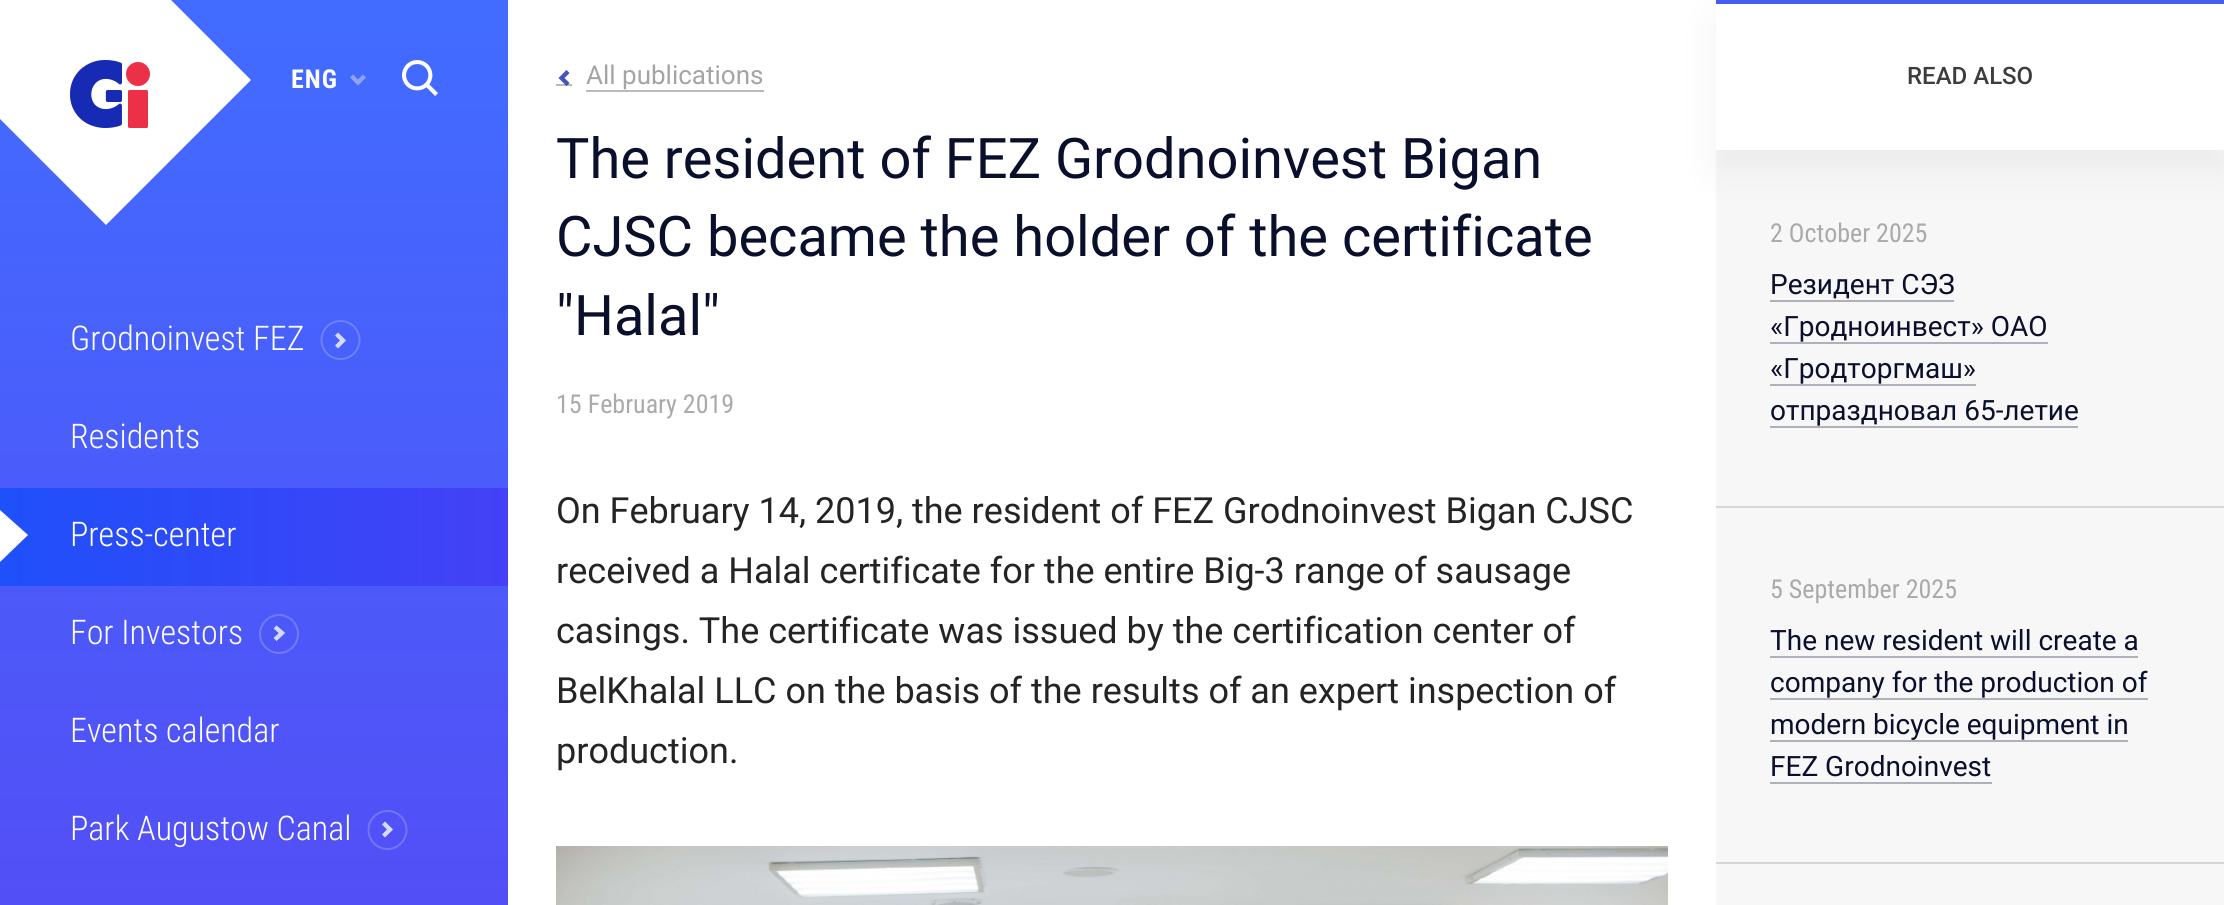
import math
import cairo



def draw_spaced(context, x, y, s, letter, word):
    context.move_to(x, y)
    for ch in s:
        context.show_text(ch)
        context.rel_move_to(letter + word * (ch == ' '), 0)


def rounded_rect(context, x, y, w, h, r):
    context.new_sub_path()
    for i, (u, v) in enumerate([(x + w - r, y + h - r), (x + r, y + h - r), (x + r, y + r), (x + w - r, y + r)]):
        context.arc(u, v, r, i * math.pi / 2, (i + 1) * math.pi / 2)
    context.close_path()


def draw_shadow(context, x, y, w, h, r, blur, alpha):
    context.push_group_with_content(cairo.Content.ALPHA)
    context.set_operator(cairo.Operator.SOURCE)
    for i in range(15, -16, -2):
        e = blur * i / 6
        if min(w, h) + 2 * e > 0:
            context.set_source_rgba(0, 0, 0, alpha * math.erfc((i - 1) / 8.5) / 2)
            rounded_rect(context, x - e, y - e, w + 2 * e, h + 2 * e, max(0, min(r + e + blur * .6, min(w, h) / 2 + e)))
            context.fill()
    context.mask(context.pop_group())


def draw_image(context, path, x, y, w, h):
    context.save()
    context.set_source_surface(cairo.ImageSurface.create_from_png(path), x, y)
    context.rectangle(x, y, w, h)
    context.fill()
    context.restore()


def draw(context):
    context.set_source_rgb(1, 1, 1)
    context.paint()
    gradient = cairo.LinearGradient(254, 0, 254, 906)
    gradient.add_color_stop_rgba(0, 66 / 255, 108 / 255, 1, 1)
    gradient.add_color_stop_rgba(1, 82 / 255, 79 / 255, 246 / 255, 1)
    context.set_source(gradient)
    context.rectangle(0, 0, 508, 905)
    context.fill()
    context.set_source_rgb(1, 1, 1)
    context.new_path()
    context.move_to(50, -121)
    context.line_to(251, 80)
    context.line_to(106, 225)
    context.line_to(-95, 24)
    context.close_path()
    context.fill()
    draw_image(context, "images/1.png", 70, 60, 80, 68)
    context.new_path()
    context.move_to(351.5, 76)
    context.line_to(358, 82.5)
    context.line_to(364.5, 76)
    context.set_source_rgb(144 / 255, 162 / 255, 235 / 255)
    context.set_line_width(4.3)
    context.stroke()
    draw_image(context, "images/2.png", 402, 60, 36, 36)
    context.new_path()
    context.move_to(336.5, 347)
    context.line_to(343, 340.5)
    context.line_to(336.5, 334)
    context.set_source_rgb(214 / 255, 218 / 255, 254 / 255)
    context.stroke()
    context.new_path()
    context.move_to(321.5, 340)
    context.curve_to(321.5, 329.5, 330, 321, 340.5, 321)
    context.curve_to(351, 321, 359.5, 329.5, 359.5, 340)
    context.curve_to(359.5, 350.5, 351, 359, 340.5, 359)
    context.curve_to(330, 359, 321.5, 350.5, 321.5, 340)
    context.close_path()
    context.set_source_rgb(109 / 255, 129 / 255, 252 / 255)
    context.set_line_width(2)
    context.stroke()
    gradient = cairo.LinearGradient(0, 537, 508, 537)
    gradient.add_color_stop_rgba(0, 31 / 255, 80 / 255, 250 / 255, 1)
    gradient.add_color_stop_rgba(1, 68 / 255, 65 / 255, 246 / 255, 1)
    context.set_source(gradient)
    context.rectangle(0, 488, 508, 98)
    context.fill()
    context.set_source_rgb(1, 1, 1)
    context.set_fill_rule(cairo.FillRule.EVEN_ODD)
    context.new_path()
    context.move_to(0, 510)
    context.line_to(0, 562)
    context.line_to(28, 535)
    context.close_path()
    context.fill()
    context.new_path()
    context.move_to(275, 639.5)
    context.line_to(282, 633)
    context.line_to(275, 627)
    context.set_source_rgb(214 / 255, 218 / 255, 254 / 255)
    context.set_line_width(4.3)
    context.stroke()
    context.new_path()
    context.move_to(260, 634)
    context.curve_to(260, 623.5, 269, 615, 279, 615)
    context.curve_to(289.5, 615, 298, 623.5, 298, 634)
    context.curve_to(298, 644.5, 289.5, 653, 279, 653)
    context.curve_to(269, 653, 260, 644.5, 260, 634)
    context.close_path()
    context.set_source_rgb(113 / 255, 121 / 255, 250 / 255)
    context.set_line_width(2)
    context.stroke()
    context.new_path()
    context.move_to(383.5, 836)
    context.line_to(390, 829.5)
    context.line_to(383.5, 823)
    context.set_source_rgb(214 / 255, 218 / 255, 254 / 255)
    context.set_line_width(4.3)
    context.stroke()
    context.new_path()
    context.move_to(368.5, 830)
    context.curve_to(368.5, 819.5, 377, 811, 387.5, 811)
    context.curve_to(398, 811, 406.5, 819.5, 406.5, 830)
    context.curve_to(406.5, 840.5, 398, 849, 387.5, 849)
    context.curve_to(377, 849, 368.5, 840.5, 368.5, 830)
    context.close_path()
    context.set_source_rgb(116 / 255, 116 / 255, 249 / 255)
    context.set_line_width(2)
    context.stroke()
    context.set_source_rgb(186 / 255, 186 / 255, 186 / 255)
    context.rectangle(586, 90, 178, 2)
    context.fill()
    context.rectangle(556, 84, 16, 2)
    context.fill()
    context.new_path()
    context.move_to(568, 71.5)
    context.line_to(561.5, 78)
    context.line_to(568, 84.5)
    context.set_source_rgba(22 / 255, 42 / 255, 180 / 255, 0.8)
    context.set_line_width(4.3)
    context.stroke()
    draw_image(context, "images/3.png", 556, 846, 1112, 59)
    context.set_source_rgb(247 / 255, 247 / 255, 247 / 255)
    context.rectangle(1716, 150, 508, 755)
    context.fill()
    context.set_source_rgb(0, 0, 0)
    draw_shadow(context, 1716, 20, 508, 150, 0, 20, 0.05)
    context.set_source_rgb(1, 1, 1)
    context.rectangle(1716, 4, 508, 146)
    context.fill()
    context.set_source_rgb(69 / 255, 93 / 255, 240 / 255)
    context.rectangle(1716, 0, 508, 4)
    context.fill()
    context.set_source_rgb(214 / 255, 214 / 255, 214 / 255)
    context.rectangle(1716, 506, 508, 2)
    context.fill()
    context.set_source_rgb(175 / 255, 177 / 255, 186 / 255)
    context.rectangle(1770, 300, 184, 2)
    context.fill()
    context.rectangle(1770, 342, 278, 2)
    context.fill()
    context.rectangle(1770, 384, 206, 2)
    context.fill()
    context.rectangle(1770, 426, 308, 2)
    context.fill()
    context.set_source_rgb(214 / 255, 214 / 255, 214 / 255)
    context.rectangle(1716, 862, 508, 2)
    context.fill()
    context.set_source_rgb(175 / 255, 177 / 255, 186 / 255)
    context.rectangle(1770, 656, 368, 2)
    context.fill()
    context.rectangle(1770, 698, 378, 2)
    context.fill()
    context.rectangle(1770, 740, 358, 2)
    context.fill()
    context.rectangle(1770, 782, 222, 2)
    context.fill()
    context.select_font_face("Roboto Condensed", cairo.FontSlant.NORMAL, cairo.FontWeight.BOLD)
    context.set_font_size(26)
    context.set_source_rgb(1, 1, 1)
    draw_spaced(context, 291, 88, "ENG", 1, 0)
    context.select_font_face("Roboto Condensed Light")
    context.set_font_size(34)
    context.move_to(70, 350)
    context.show_text("Grodnoinvest FEZ")
    context.move_to(70, 448)
    context.show_text("Residents")
    context.move_to(70, 546)
    context.show_text("Press-center")
    context.move_to(70, 644)
    context.show_text("For Investors")
    context.move_to(70, 742)
    context.show_text("Events calendar")
    context.move_to(70, 840)
    context.show_text("Park Augustow Canal")
    context.select_font_face("Roboto")
    context.set_font_size(26)
    context.set_source_rgb(164 / 255, 164 / 255, 164 / 255)
    context.move_to(586, 84)
    context.show_text("All publications")
    context.set_font_size(56)
    context.set_source_rgb(10 / 255, 15 / 255, 44 / 255)
    context.move_to(556, 178)
    context.show_text("The resident of FEZ Grodnoinvest Bigan")
    context.move_to(556, 256)
    context.show_text("CJSC became the holder of the certificate")
    context.move_to(556, 335)
    context.show_text("\"Halal\"")
    context.select_font_face("Roboto Condensed")
    context.set_font_size(26)
    context.set_source_rgb(170 / 255, 170 / 255, 170 / 255)
    context.move_to(556, 413)
    context.show_text("15 February 2019")
    context.select_font_face("Roboto")
    context.set_font_size(36)
    context.set_source_rgb(36 / 255, 36 / 255, 36 / 255)
    context.move_to(556, 523)
    context.show_text("On February 14, 2019, the resident of FEZ Grodnoinvest Bigan CJSC")
    context.move_to(556, 583)
    context.show_text("received a Halal certificate for the entire Big-3 range of sausage")
    context.move_to(556, 643)
    context.show_text("casings. The certificate was issued by the certification center of")
    context.move_to(556, 703)
    context.show_text("BelKhalal LLC on the basis of the results of an expert inspection of")
    context.move_to(556, 763)
    context.show_text("production.")
    context.select_font_face("Roboto Medium")
    context.set_font_size(24)
    context.set_source_rgb(61 / 255, 61 / 255, 61 / 255)
    context.move_to(1907, 84)
    context.show_text("READ ALSO")
    context.select_font_face("Roboto Condensed")
    context.set_font_size(26)
    context.set_source_rgb(170 / 255, 170 / 255, 170 / 255)
    context.move_to(1770, 242)
    context.show_text("2 October 2025")
    context.select_font_face("Roboto")
    context.set_font_size(28)
    context.set_source_rgb(10 / 255, 15 / 255, 44 / 255)
    context.move_to(1770, 294)
    context.show_text("Резидент СЭЗ")
    context.move_to(1770, 336)
    context.show_text("«Гродноинвест» ОАО")
    context.move_to(1770, 378)
    context.show_text("«Гродторгмаш»")
    context.move_to(1770, 420)
    context.show_text("отпраздновал 65-летие")
    context.select_font_face("Roboto Condensed")
    context.set_font_size(26)
    context.set_source_rgb(170 / 255, 170 / 255, 170 / 255)
    context.move_to(1770, 598)
    context.show_text("5 September 2025")
    context.select_font_face("Roboto")
    context.set_font_size(28)
    context.set_source_rgb(10 / 255, 15 / 255, 44 / 255)
    context.move_to(1770, 650)
    context.show_text("The new resident will create a")
    context.move_to(1770, 692)
    context.show_text("company for the production of")
    context.move_to(1770, 734)
    context.show_text("modern bicycle equipment in")
    context.move_to(1770, 776)
    context.show_text("FEZ Grodnoinvest")


surface = cairo.ImageSurface(cairo.Format.RGB24, 2224, 905)
context = cairo.Context(surface)
options = cairo.FontOptions()
options.set_hint_metrics(cairo.HintMetrics.OFF)
options.set_hint_style(cairo.HintStyle.NONE)
context.set_font_options(options)
context.set_miter_limit(4)
draw(context)
surface.write_to_png("out.png")
